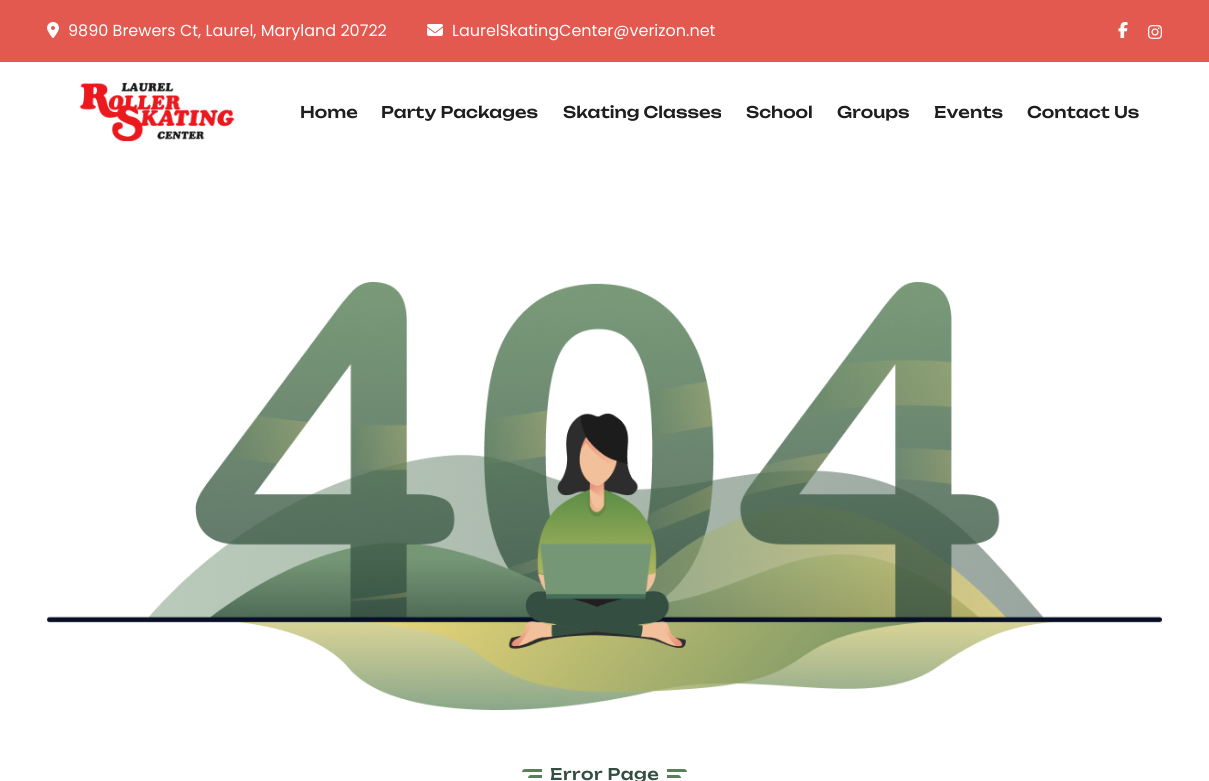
import math
import cairo



def draw_spaced(context, x, y, s, letter, word):
    context.move_to(x, y)
    for ch in s:
        context.show_text(ch)
        context.rel_move_to(letter + word * (ch == ' '), 0)


def draw_image(context, path, x, y, w, h):
    context.save()
    context.set_source_surface(cairo.ImageSurface.create_from_png(path), x, y)
    context.rectangle(x, y, w, h)
    context.fill()
    context.restore()


def draw(context):
    context.set_source_rgb(1, 1, 1)
    context.paint()
    context.set_source_rgb(227 / 255, 88 / 255, 79 / 255)
    context.rectangle(0, 0, 1209, 62)
    context.fill()
    draw_image(context, "images/1.png", 47, 22, 12, 16)
    draw_image(context, "images/2.png", 427, 24, 16, 12)
    draw_image(context, "images/3.png", 1118, 22, 10, 16)
    draw_image(context, "images/4.png", 1148, 25, 14, 14)
    draw_image(context, "images/5.png", 79, 82, 156, 60)
    draw_image(context, "images/6.png", 47, 282, 1115, 428)
    draw_image(context, "images/7.png", 522, 769, 20, 9)
    draw_image(context, "images/8.png", 667, 769, 20, 9)
    context.select_font_face("Poppins")
    context.set_font_size(16)
    context.set_source_rgb(1, 1, 1)
    context.move_to(68, 36)
    context.show_text("9890 Brewers Ct, Laurel, Maryland 20722")
    context.move_to(452, 36)
    context.show_text("LaurelSkatingCenter@verizon.net")
    context.select_font_face("Unbounded Medium")
    context.set_source_rgb(30 / 255, 30 / 255, 30 / 255)
    context.move_to(300, 118)
    context.show_text("Home")
    context.move_to(381, 118)
    context.show_text("Party Packages")
    context.move_to(563, 118)
    context.show_text("Skating Classes")
    context.move_to(746, 118)
    context.show_text("School")
    context.move_to(837, 118)
    context.show_text("Groups")
    context.move_to(934, 118)
    context.show_text("Events")
    context.move_to(1027, 118)
    context.show_text("Contact Us")
    context.set_source_rgb(52 / 255, 78 / 255, 65 / 255)
    draw_spaced(context, 550, 780, "Error Page", 0.5, 0)


surface = cairo.ImageSurface(cairo.Format.RGB24, 1209, 781)
context = cairo.Context(surface)
options = cairo.FontOptions()
options.set_hint_metrics(cairo.HintMetrics.OFF)
options.set_hint_style(cairo.HintStyle.NONE)
context.set_font_options(options)
context.set_miter_limit(4)
draw(context)
surface.write_to_png("out.png")
